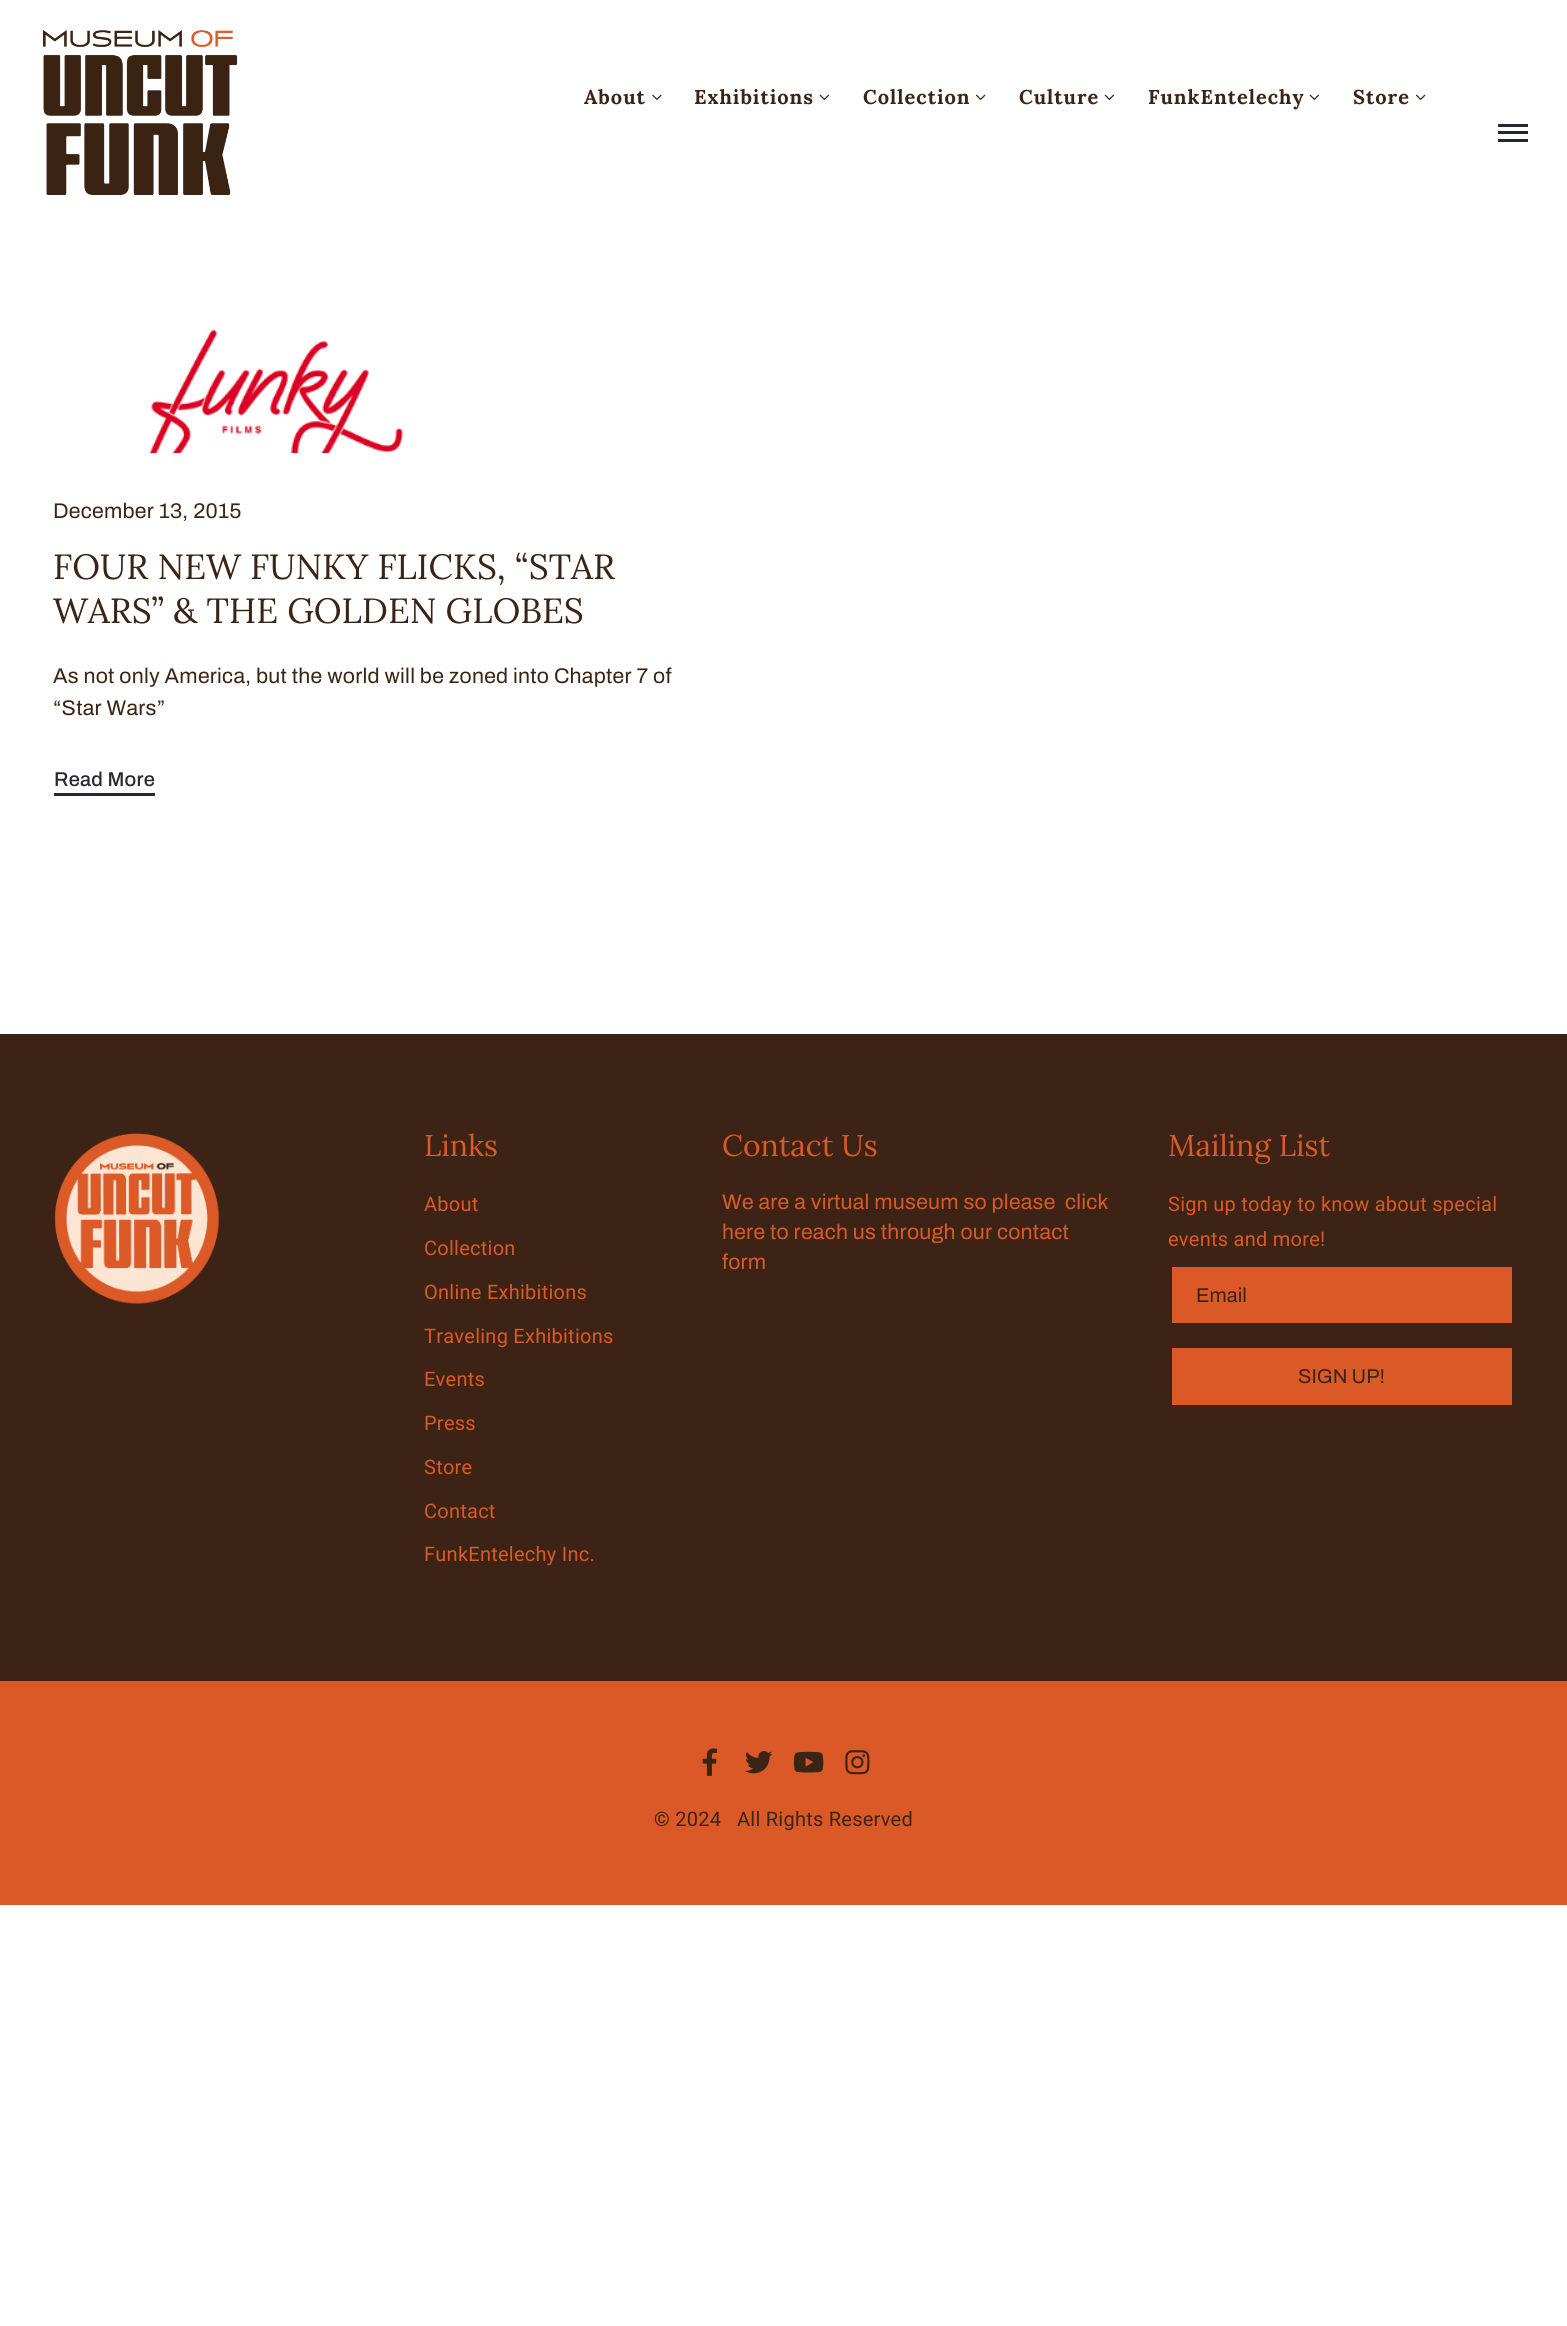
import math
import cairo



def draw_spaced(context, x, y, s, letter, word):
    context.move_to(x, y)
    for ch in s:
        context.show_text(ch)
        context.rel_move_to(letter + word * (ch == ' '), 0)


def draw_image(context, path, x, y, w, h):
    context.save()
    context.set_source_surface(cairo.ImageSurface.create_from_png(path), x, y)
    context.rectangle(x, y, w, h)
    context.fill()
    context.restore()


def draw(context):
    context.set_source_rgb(1, 1, 1)
    context.paint()
    draw_image(context, "images/1.png", 43, 30, 195, 165)
    draw_image(context, "images/2.png", 652, 94, 10, 6)
    draw_image(context, "images/3.png", 819, 94, 10, 6)
    draw_image(context, "images/4.png", 976, 94, 10, 6)
    draw_image(context, "images/3.png", 1104, 94, 10, 6)
    draw_image(context, "images/3.png", 1309, 94, 10, 6)
    draw_image(context, "images/4.png", 1416, 94, 10, 6)
    context.set_source_rgb(37 / 255, 40 / 255, 46 / 255)
    context.rectangle(1498, 124, 30, 3)
    context.fill()
    context.rectangle(1498, 131, 30, 3)
    context.fill()
    context.rectangle(1498, 139, 30, 3)
    context.fill()
    draw_image(context, "images/5.png", 141, 329, 262, 124)
    context.set_source_rgb(232 / 255, 232 / 255, 232 / 255)
    context.new_path()
    context.move_to(156, 795)
    context.line_to(52, 795)
    context.line_to(54, 794)
    context.line_to(155, 794)
    context.close_path()
    context.fill()
    context.set_source_rgb(37 / 255, 40 / 255, 46 / 255)
    context.rectangle(54, 793, 101, 3)
    context.fill()
    context.set_source_rgb(60 / 255, 35 / 255, 21 / 255)
    context.rectangle(0, 1034, 1567, 647)
    context.fill()
    draw_image(context, "images/6.png", 54, 1133, 166, 171)
    context.set_source_rgb(219 / 255, 89 / 255, 38 / 255)
    context.rectangle(1172, 1267, 340, 56)
    context.fill()
    context.rectangle(1172, 1348, 340, 57)
    context.fill()
    context.rectangle(0, 1681, 1567, 224)
    context.fill()
    draw_image(context, "images/7.png", 702, 1748, 15, 28)
    draw_image(context, "images/8.png", 745, 1751, 28, 23)
    draw_image(context, "images/9.png", 793, 1751, 31, 22)
    draw_image(context, "images/10.png", 845, 1750, 25, 25)
    context.select_font_face("Lora", cairo.FontSlant.NORMAL, cairo.FontWeight.BOLD)
    context.set_font_size(20)
    context.set_source_rgb(58 / 255, 36 / 255, 22 / 255)
    draw_spaced(context, 584, 104, "About", 1, 0)
    draw_spaced(context, 694, 104, "Exhibitions", 1, 0)
    draw_spaced(context, 863, 104, "Collection", 1, 0)
    draw_spaced(context, 1019, 104, "Culture", 1, 0)
    draw_spaced(context, 1148, 104, "FunkEntelechy", 1, 0)
    draw_spaced(context, 1353, 104, "Store", 1, 0)
    context.select_font_face("Archivo")
    context.set_font_size(21.25)
    draw_spaced(context, 53, 518, "December 13, 2015", 0.25, 0)
    context.select_font_face("Lora")
    context.set_font_size(35)
    context.move_to(53, 579)
    context.show_text("FOUR NEW FUNKY FLICKS, “STAR")
    context.move_to(53, 623)
    context.show_text("WARS” & THE GOLDEN GLOBES")
    context.select_font_face("Archivo")
    context.set_font_size(21.25)
    draw_spaced(context, 53, 683, "As not only America, but the world will be zoned into Chapter 7 of", 0.25, 0)
    draw_spaced(context, 53, 715, "“Star Wars”", 0.25, 0)
    context.select_font_face("Archivo Medium")
    context.set_font_size(20)
    context.set_source_rgb(37 / 255, 40 / 255, 46 / 255)
    draw_spaced(context, 54, 786, "Read More", 0.25, 0)
    context.select_font_face("Lora")
    context.set_font_size(30)
    context.set_source_rgb(219 / 255, 89 / 255, 38 / 255)
    context.move_to(424, 1156)
    context.show_text("Links")
    context.select_font_face("Roboto")
    context.set_font_size(20)
    draw_spaced(context, 424, 1211, "About", 0.25, 0)
    draw_spaced(context, 424, 1255, "Collection", 0.25, 0)
    draw_spaced(context, 424, 1299, "Online Exhibitions", 0.25, 0)
    draw_spaced(context, 424, 1343, "Traveling Exhibitions", 0.25, 0)
    draw_spaced(context, 424, 1386, "Events", 0.25, 0)
    draw_spaced(context, 424, 1430, "Press", 0.25, 0)
    draw_spaced(context, 424, 1474, "Store", 0.25, 0)
    draw_spaced(context, 424, 1518, "Contact", 0.25, 0)
    draw_spaced(context, 424, 1561, "FunkEntelechy Inc.", 0.25, 0)
    context.select_font_face("Lora")
    context.set_font_size(30)
    context.move_to(722, 1156)
    context.show_text("Contact Us")
    context.select_font_face("Archivo")
    context.set_font_size(21.25)
    draw_spaced(context, 722, 1209, "We are a virtual museum so please  click", 0.25, 0)
    draw_spaced(context, 722, 1239, "here to reach us through our contact", 0.25, 0)
    draw_spaced(context, 722, 1269, "form", 0.25, 0)
    context.select_font_face("Lora")
    context.set_font_size(30)
    context.move_to(1168, 1156)
    context.show_text("Mailing List")
    context.select_font_face("Roboto")
    context.set_font_size(20)
    draw_spaced(context, 1168, 1211, "Sign up today to know about special", 0.25, 0)
    draw_spaced(context, 1168, 1246, "events and more!", 0.25, 0)
    context.select_font_face("Archivo")
    context.set_source_rgb(58 / 255, 36 / 255, 22 / 255)
    context.move_to(1196, 1302)
    context.show_text("Email")
    context.move_to(1298, 1383)
    context.show_text("SIGN UP!")
    context.select_font_face("Roboto")
    draw_spaced(context, 654, 1826, "© 2024", 0.25, 0)
    draw_spaced(context, 737, 1826, "All Rights Reserved", 0.25, 0)


surface = cairo.ImageSurface(cairo.Format.RGB24, 1567, 2326)
context = cairo.Context(surface)
options = cairo.FontOptions()
options.set_hint_metrics(cairo.HintMetrics.OFF)
options.set_hint_style(cairo.HintStyle.NONE)
context.set_font_options(options)
context.set_miter_limit(4)
draw(context)
surface.write_to_png("out.png")
